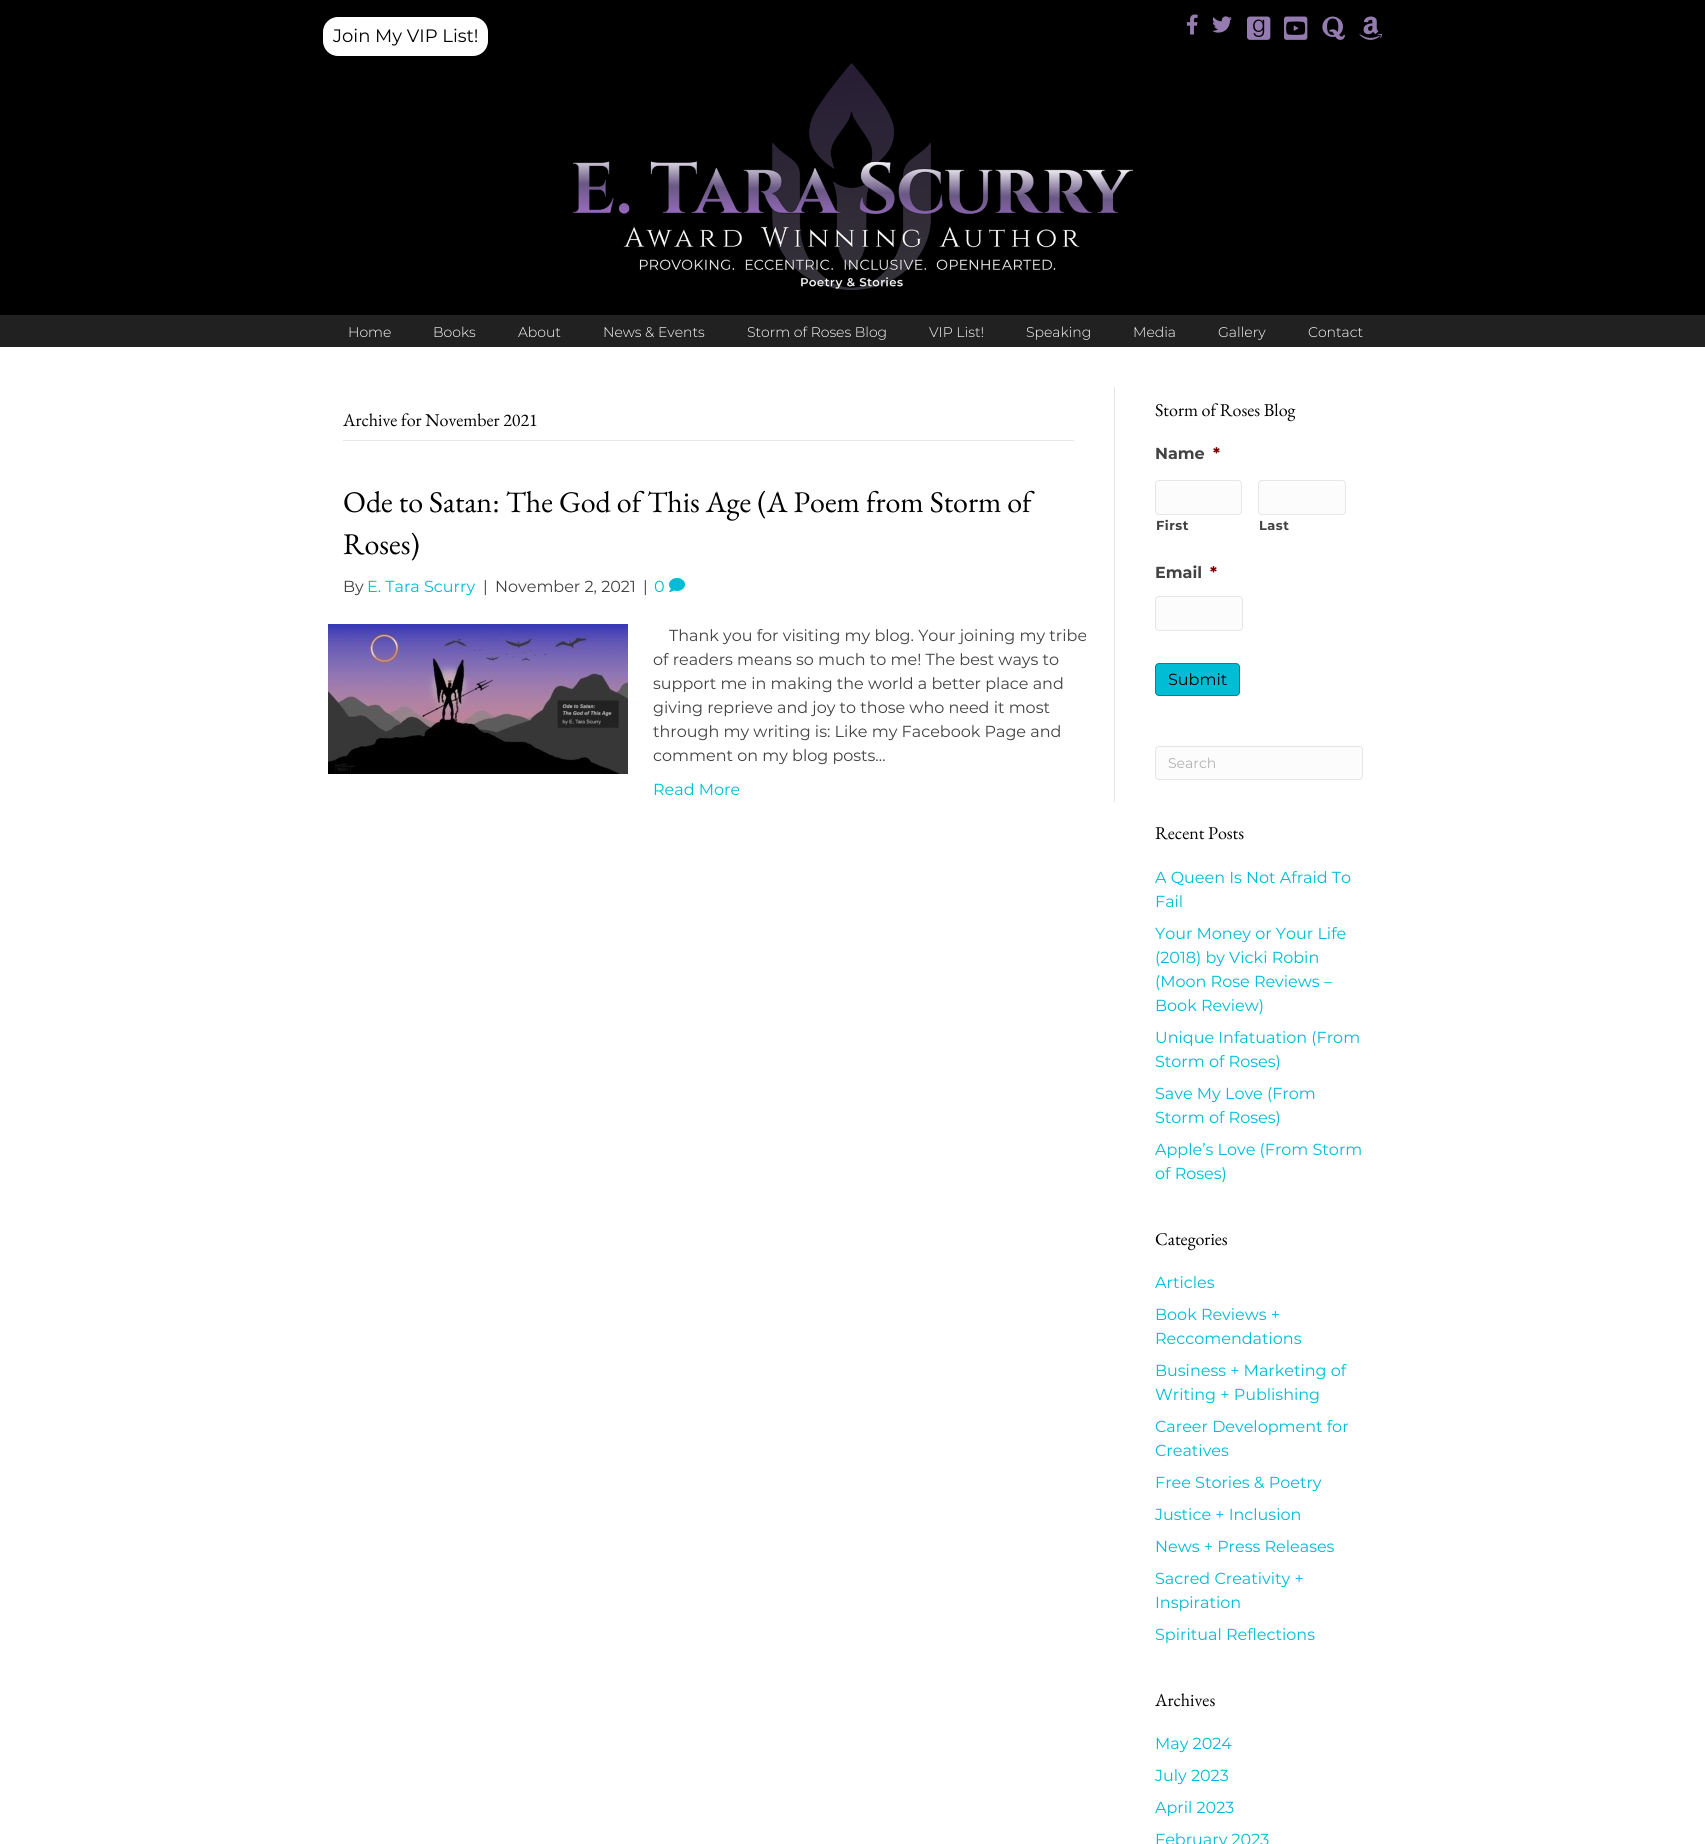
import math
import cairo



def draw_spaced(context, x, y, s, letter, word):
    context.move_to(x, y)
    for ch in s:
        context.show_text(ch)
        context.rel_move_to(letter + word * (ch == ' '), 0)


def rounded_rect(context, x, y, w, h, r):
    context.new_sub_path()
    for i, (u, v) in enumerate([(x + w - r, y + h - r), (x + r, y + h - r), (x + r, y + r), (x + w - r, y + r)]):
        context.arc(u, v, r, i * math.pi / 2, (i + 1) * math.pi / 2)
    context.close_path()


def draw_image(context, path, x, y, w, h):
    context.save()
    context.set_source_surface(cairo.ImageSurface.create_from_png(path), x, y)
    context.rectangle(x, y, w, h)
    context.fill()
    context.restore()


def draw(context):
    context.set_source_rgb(1, 1, 1)
    context.paint()
    context.set_source_rgb(0, 0, 0)
    context.rectangle(0, 0, 1705, 315)
    context.fill()
    context.set_source_rgb(1, 1, 1)
    rounded_rect(context, 323, 17, 165, 39, 15)
    context.fill()
    draw_image(context, "images/1.png", 1186, 14, 12, 21)
    draw_image(context, "images/2.png", 1212, 16, 20, 17)
    draw_image(context, "images/3.png", 1247, 16, 24, 24)
    draw_image(context, "images/4.png", 1284, 16, 24, 24)
    draw_image(context, "images/5.png", 1322, 16, 23, 24)
    draw_image(context, "images/6.png", 1359, 16, 23, 24)
    draw_image(context, "images/7.png", 573, 63, 560, 227)
    context.set_source_rgb(33 / 255, 33 / 255, 33 / 255)
    context.rectangle(0, 315, 1705, 32)
    context.fill()
    context.set_source_rgb(230 / 255, 230 / 255, 230 / 255)
    context.rectangle(1114, 387, 1, 415)
    context.fill()
    context.rectangle(343, 440, 731, 1)
    context.fill()
    draw_image(context, "images/8.png", 669, 578, 16, 14)
    draw_image(context, "images/9.png", 328, 624, 300, 150)
    context.set_source_rgb(252 / 255, 252 / 255, 252 / 255)
    rounded_rect(context, 1155.5, 480.5, 86, 34, 3.5)
    context.fill_preserve()
    context.set_source_rgb(230 / 255, 230 / 255, 230 / 255)
    context.set_line_width(1)
    context.stroke()
    context.set_source_rgb(252 / 255, 252 / 255, 252 / 255)
    rounded_rect(context, 1258.5, 480.5, 87, 34, 3.5)
    context.fill_preserve()
    context.set_source_rgb(230 / 255, 230 / 255, 230 / 255)
    context.stroke()
    context.set_source_rgb(252 / 255, 252 / 255, 252 / 255)
    rounded_rect(context, 1155.5, 596.5, 87, 34, 3.5)
    context.fill_preserve()
    context.set_source_rgb(230 / 255, 230 / 255, 230 / 255)
    context.stroke()
    context.set_source_rgb(0, 188 / 255, 212 / 255)
    rounded_rect(context, 1155.5, 663.5, 84, 32, 3.5)
    context.fill_preserve()
    context.set_source_rgb(0, 134 / 255, 151 / 255)
    context.stroke()
    context.set_source_rgb(252 / 255, 252 / 255, 252 / 255)
    rounded_rect(context, 1155.5, 746.5, 207, 33, 3.5)
    context.fill_preserve()
    context.set_source_rgb(230 / 255, 230 / 255, 230 / 255)
    context.stroke()
    context.select_font_face("Montserrat")
    context.set_font_size(18)
    context.set_source_rgb(0, 0, 0)
    context.move_to(333, 42)
    context.show_text("Join My VIP List!")
    context.select_font_face("Montserrat Light")
    context.set_font_size(14)
    context.set_source_rgb(1, 1, 1)
    context.move_to(348, 337)
    context.show_text("Home")
    context.move_to(433, 337)
    context.show_text("Books")
    context.move_to(518, 337)
    context.show_text("About")
    context.move_to(603, 337)
    context.show_text("News & Events")
    context.move_to(747, 337)
    context.show_text("Storm of Roses Blog")
    context.move_to(929, 337)
    context.show_text("VIP List!")
    context.move_to(1026, 337)
    context.show_text("Speaking")
    context.move_to(1133, 337)
    context.show_text("Media")
    context.move_to(1218, 337)
    context.show_text("Gallery")
    context.move_to(1308, 337)
    context.show_text("Contact")
    context.select_font_face("EB Garamond")
    context.set_font_size(18)
    context.set_source_rgb(0, 0, 0)
    context.move_to(343, 426)
    context.show_text("Archive for November 2021")
    context.set_font_size(30)
    context.move_to(343, 512)
    context.show_text("Ode to Satan: The God of This Age (A Poem from Storm of")
    context.move_to(343, 554)
    context.show_text("Roses)")
    context.select_font_face("Montserrat")
    context.set_font_size(16)
    context.set_source_rgb(66 / 255, 66 / 255, 66 / 255)
    context.move_to(343, 592)
    context.show_text("By")
    context.set_source_rgb(0, 188 / 255, 212 / 255)
    context.move_to(367, 592)
    context.show_text("E. Tara Scurry")
    context.set_source_rgb(66 / 255, 66 / 255, 66 / 255)
    context.move_to(483, 592)
    context.show_text("|")
    context.move_to(495, 592)
    context.show_text("November 2, 2021")
    context.move_to(643, 592)
    context.show_text("|")
    context.set_source_rgb(0, 188 / 255, 212 / 255)
    context.move_to(654, 592)
    context.show_text("0")
    context.set_source_rgb(66 / 255, 66 / 255, 66 / 255)
    context.move_to(669, 641)
    context.show_text("Thank you for visiting my blog. Your joining my tribe")
    context.move_to(653, 665)
    context.show_text("of readers means so much to me! The best ways to")
    context.move_to(653, 689)
    context.show_text("support me in making the world a better place and")
    context.move_to(653, 713)
    context.show_text("giving reprieve and joy to those who need it most")
    context.move_to(653, 737)
    context.show_text("through my writing is: Like my Facebook Page and")
    context.move_to(653, 761)
    context.show_text("comment on my blog posts…")
    context.set_source_rgb(0, 188 / 255, 212 / 255)
    context.move_to(653, 795)
    context.show_text("Read More")
    context.select_font_face("EB Garamond")
    context.set_font_size(18)
    context.set_source_rgb(0, 0, 0)
    context.move_to(1155, 416)
    context.show_text("Storm of Roses Blog")
    context.select_font_face("Montserrat", cairo.FontSlant.NORMAL, cairo.FontWeight.BOLD)
    context.set_font_size(16)
    context.set_source_rgb(66 / 255, 66 / 255, 66 / 255)
    context.move_to(1155, 459)
    context.show_text("Name")
    context.set_source_rgb(121 / 255, 0, 0)
    context.move_to(1213, 459)
    context.show_text("*")
    context.set_font_size(13)
    context.set_source_rgb(66 / 255, 66 / 255, 66 / 255)
    draw_spaced(context, 1156, 530, "First", 0.5, 0)
    draw_spaced(context, 1259, 530, "Last", 0.5, 0)
    context.set_font_size(16)
    context.move_to(1155, 578)
    context.show_text("Email")
    context.set_source_rgb(121 / 255, 0, 0)
    context.move_to(1210, 578)
    context.show_text("*")
    context.select_font_face("Montserrat")
    context.set_source_rgb(0, 0, 0)
    context.move_to(1168, 685)
    context.show_text("Submit")
    context.set_font_size(14)
    context.set_source_rgb(178 / 255, 178 / 255, 178 / 255)
    context.move_to(1168, 768)
    context.show_text("Search")
    context.select_font_face("EB Garamond")
    context.set_font_size(18)
    context.set_source_rgb(0, 0, 0)
    context.move_to(1155, 839)
    context.show_text("Recent Posts")
    context.select_font_face("Montserrat")
    context.set_font_size(16)
    context.set_source_rgb(0, 188 / 255, 212 / 255)
    context.move_to(1155, 883)
    context.show_text("A Queen Is Not Afraid To")
    context.move_to(1155, 907)
    context.show_text("Fail")
    context.move_to(1155, 939)
    context.show_text("Your Money or Your Life")
    context.move_to(1155, 963)
    context.show_text("(2018) by Vicki Robin")
    context.move_to(1155, 987)
    context.show_text("(Moon Rose Reviews –")
    context.move_to(1155, 1011)
    context.show_text("Book Review)")
    context.move_to(1155, 1043)
    context.show_text("Unique Infatuation (From")
    context.move_to(1155, 1067)
    context.show_text("Storm of Roses)")
    context.move_to(1155, 1099)
    context.show_text("Save My Love (From")
    context.move_to(1155, 1123)
    context.show_text("Storm of Roses)")
    context.move_to(1155, 1155)
    context.show_text("Apple’s Love (From Storm")
    context.move_to(1155, 1179)
    context.show_text("of Roses)")
    context.select_font_face("EB Garamond")
    context.set_font_size(18)
    context.set_source_rgb(0, 0, 0)
    context.move_to(1155, 1245)
    context.show_text("Categories")
    context.select_font_face("Montserrat")
    context.set_font_size(16)
    context.set_source_rgb(0, 188 / 255, 212 / 255)
    context.move_to(1155, 1288)
    context.show_text("Articles")
    context.move_to(1155, 1320)
    context.show_text("Book Reviews +")
    context.move_to(1155, 1344)
    context.show_text("Reccomendations")
    context.move_to(1155, 1376)
    context.show_text("Business + Marketing of")
    context.move_to(1155, 1400)
    context.show_text("Writing + Publishing")
    context.move_to(1155, 1432)
    context.show_text("Career Development for")
    context.move_to(1155, 1456)
    context.show_text("Creatives")
    context.move_to(1155, 1488)
    context.show_text("Free Stories & Poetry")
    context.move_to(1155, 1520)
    context.show_text("Justice + Inclusion")
    context.move_to(1155, 1552)
    context.show_text("News + Press Releases")
    context.move_to(1155, 1584)
    context.show_text("Sacred Creativity +")
    context.move_to(1155, 1608)
    context.show_text("Inspiration")
    context.move_to(1155, 1640)
    context.show_text("Spiritual Reflections")
    context.select_font_face("EB Garamond")
    context.set_font_size(18)
    context.set_source_rgb(0, 0, 0)
    context.move_to(1155, 1706)
    context.show_text("Archives")
    context.select_font_face("Montserrat")
    context.set_font_size(16)
    context.set_source_rgb(0, 188 / 255, 212 / 255)
    context.move_to(1155, 1749)
    context.show_text("May 2024")
    context.move_to(1155, 1781)
    context.show_text("July 2023")
    context.move_to(1155, 1813)
    context.show_text("April 2023")
    context.move_to(1155, 1845)
    context.show_text("February 2023")


surface = cairo.ImageSurface(cairo.Format.RGB24, 1705, 1844)
context = cairo.Context(surface)
options = cairo.FontOptions()
options.set_hint_metrics(cairo.HintMetrics.OFF)
options.set_hint_style(cairo.HintStyle.NONE)
context.set_font_options(options)
context.set_miter_limit(4)
draw(context)
surface.write_to_png("out.png")
